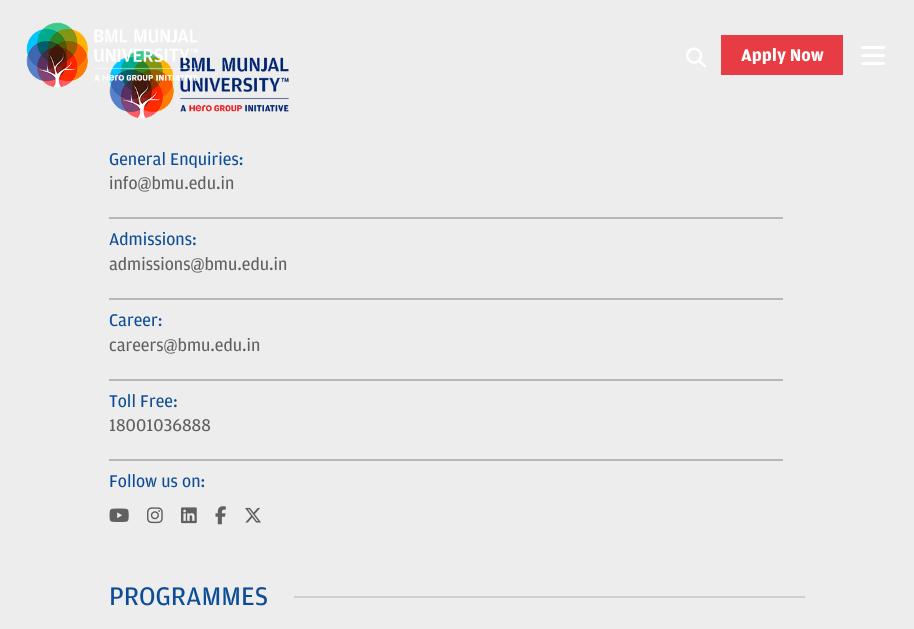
import math
import cairo



def rounded_rect(context, x, y, w, h, r):
    context.new_sub_path()
    for i, (u, v) in enumerate([(x + w - r, y + h - r), (x + r, y + h - r), (x + r, y + r), (x + w - r, y + r)]):
        context.arc(u, v, r, i * math.pi / 2, (i + 1) * math.pi / 2)
    context.close_path()


def draw_image(context, path, x, y, w, h):
    context.save()
    context.set_source_surface(cairo.ImageSurface.create_from_png(path), x, y)
    context.rectangle(x, y, w, h)
    context.fill()
    context.restore()


def draw(context):
    context.set_source_rgb(237 / 255, 237 / 255, 237 / 255)
    context.paint()
    draw_image(context, "images/3.png", 109, 50, 180, 69)
    draw_image(context, "images/1.png", 26, 22, 172, 66)
    draw_image(context, "images/2.png", 686, 47, 20, 21)
    context.set_source_rgb(232 / 255, 60 / 255, 68 / 255)
    context.rectangle(721, 35, 122, 40)
    context.fill()
    context.set_source_rgb(1, 1, 1)
    rounded_rect(context, 861, 46, 24, 3, 1.5)
    context.fill()
    rounded_rect(context, 861, 54, 24, 3, 1.5)
    context.fill()
    rounded_rect(context, 861, 62, 24, 3, 1.5)
    context.fill()
    context.set_source_rgb(183 / 255, 183 / 255, 183 / 255)
    context.rectangle(109, 217, 674, 2)
    context.fill()
    context.rectangle(109, 298, 674, 2)
    context.fill()
    context.rectangle(109, 379, 674, 2)
    context.fill()
    context.rectangle(109, 459, 674, 2)
    context.fill()
    draw_image(context, "images/4.png", 109, 508, 20, 14)
    draw_image(context, "images/5.png", 147, 507, 16, 17)
    draw_image(context, "images/6.png", 181, 507, 16, 17)
    draw_image(context, "images/7.png", 215, 506, 11, 19)
    draw_image(context, "images/8.png", 245, 507, 16, 16)
    context.set_source_rgb(207 / 255, 207 / 255, 207 / 255)
    context.rectangle(294, 596, 511, 2)
    context.fill()
    context.select_font_face("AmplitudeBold", cairo.FontSlant.NORMAL, cairo.FontWeight.BOLD)
    context.set_font_size(18)
    context.set_source_rgb(1, 1, 1)
    context.move_to(741, 61)
    context.show_text("Apply Now")
    context.select_font_face("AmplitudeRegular")
    context.set_source_rgb(13 / 255, 77 / 255, 150 / 255)
    context.move_to(109, 165)
    context.show_text("General Enquiries:")
    context.set_source_rgb(96 / 255, 96 / 255, 96 / 255)
    context.move_to(109, 189)
    context.show_text("info@bmu.edu.in")
    context.set_source_rgb(13 / 255, 77 / 255, 150 / 255)
    context.move_to(109, 245)
    context.show_text("Admissions:")
    context.set_source_rgb(96 / 255, 96 / 255, 96 / 255)
    context.move_to(109, 270)
    context.show_text("admissions@bmu.edu.in")
    context.set_source_rgb(13 / 255, 77 / 255, 150 / 255)
    context.move_to(109, 326)
    context.show_text("Career:")
    context.set_source_rgb(96 / 255, 96 / 255, 96 / 255)
    context.move_to(109, 351)
    context.show_text("careers@bmu.edu.in")
    context.set_source_rgb(13 / 255, 77 / 255, 150 / 255)
    context.move_to(109, 407)
    context.show_text("Toll Free:")
    context.set_source_rgb(96 / 255, 96 / 255, 96 / 255)
    context.move_to(109, 431)
    context.show_text("18001036888")
    context.set_source_rgb(13 / 255, 77 / 255, 150 / 255)
    context.move_to(109, 487)
    context.show_text("Follow us on:")
    context.set_font_size(27)
    context.move_to(109, 605)
    context.show_text("PROGRAMMES")


surface = cairo.ImageSurface(cairo.Format.RGB24, 914, 629)
context = cairo.Context(surface)
options = cairo.FontOptions()
options.set_hint_metrics(cairo.HintMetrics.OFF)
options.set_hint_style(cairo.HintStyle.NONE)
context.set_font_options(options)
context.set_miter_limit(4)
draw(context)
surface.write_to_png("out.png")
